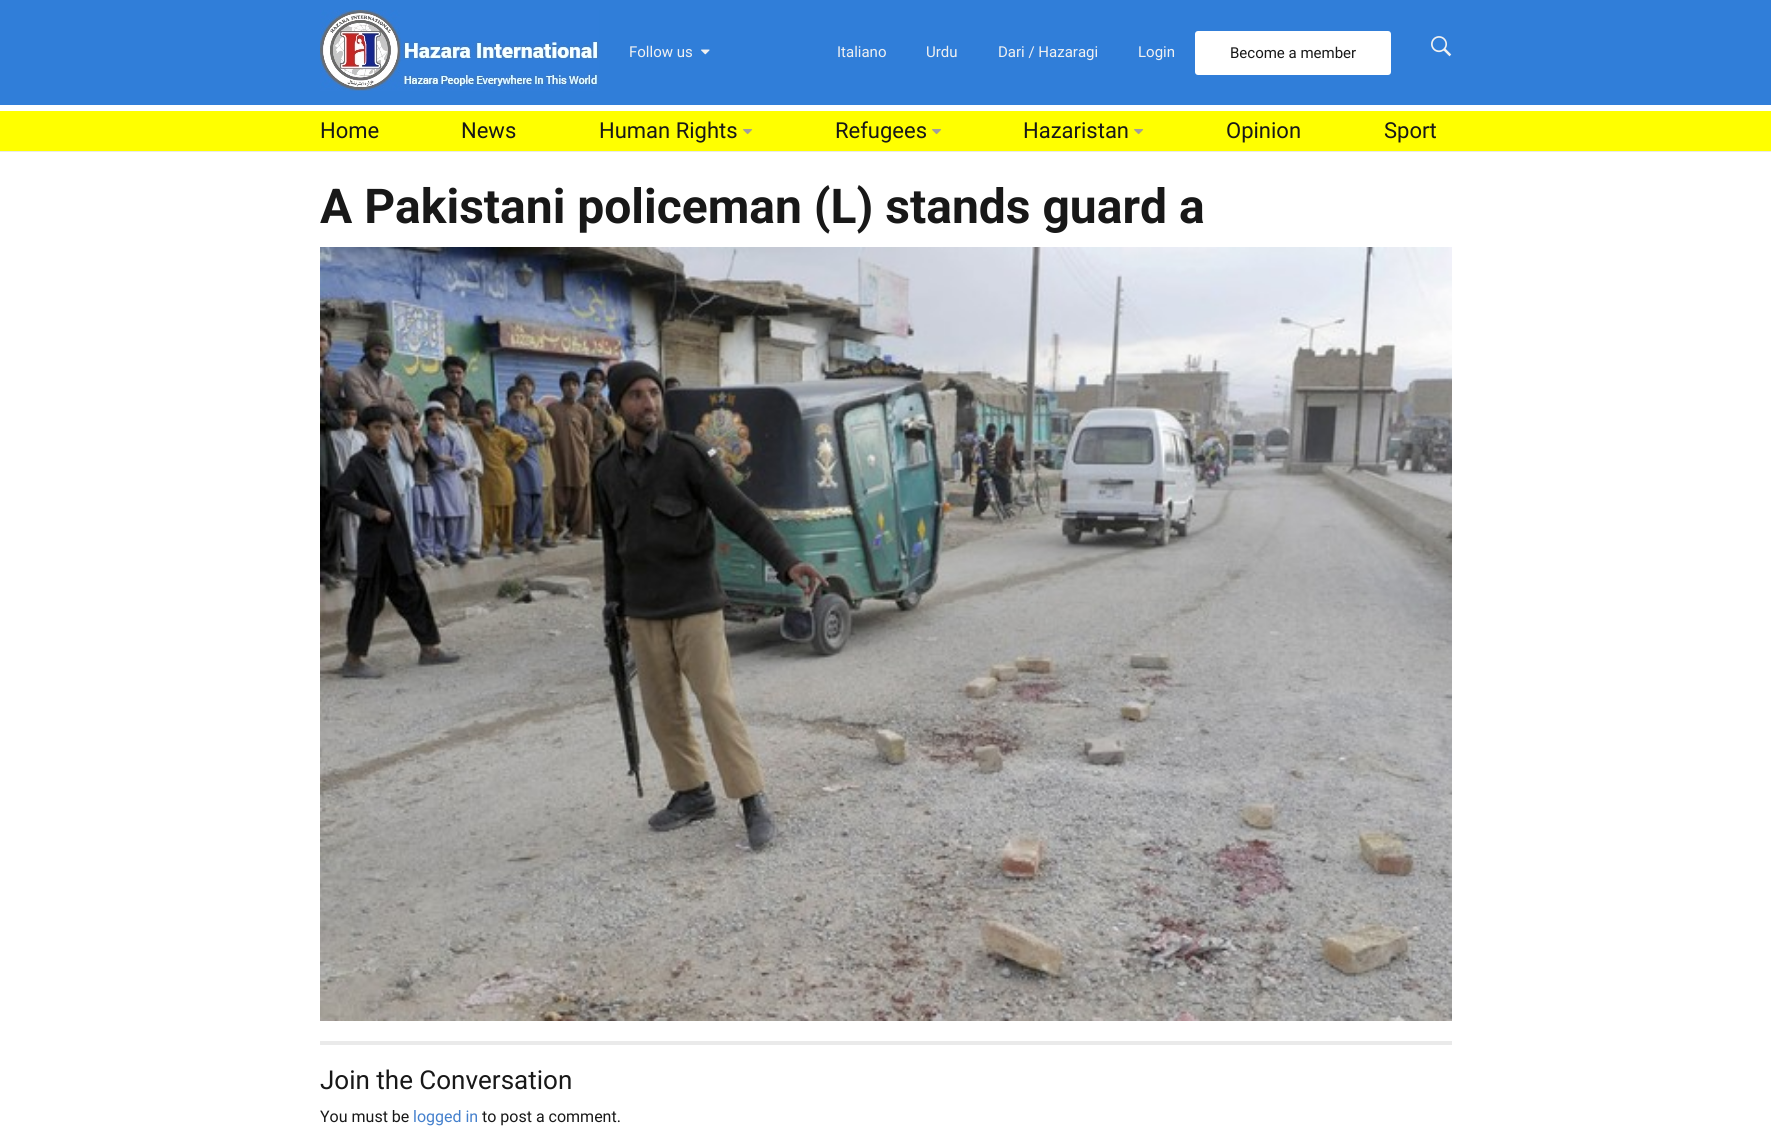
import math
import cairo



def rounded_rect(context, x, y, w, h, r):
    context.new_sub_path()
    for i, (u, v) in enumerate([(x + w - r, y + h - r), (x + r, y + h - r), (x + r, y + r), (x + w - r, y + r)]):
        context.arc(u, v, r, i * math.pi / 2, (i + 1) * math.pi / 2)
    context.close_path()


def draw_image(context, path, x, y, w, h):
    context.save()
    context.set_source_surface(cairo.ImageSurface.create_from_png(path), x, y)
    context.rectangle(x, y, w, h)
    context.fill()
    context.restore()


def draw(context):
    context.set_source_rgb(1, 1, 1)
    context.paint()
    context.set_source_rgb(48 / 255, 126 / 255, 217 / 255)
    context.rectangle(0, 0, 1771, 105)
    context.fill()
    draw_image(context, "images/1.png", 320, 10, 279, 81)
    draw_image(context, "images/2.png", 701, 49, 9, 6)
    context.set_source_rgb(1, 1, 1)
    rounded_rect(context, 1195, 31, 196, 44, 3)
    context.fill()
    draw_image(context, "images/3.png", 1431, 36, 21, 21)
    context.set_source_rgb(1, 1, 0)
    context.rectangle(0, 111, 1771, 40)
    context.fill()
    context.set_source_rgb(234 / 255, 234 / 255, 234 / 255)
    context.rectangle(0, 151, 1771, 1)
    context.fill()
    draw_image(context, "images/4.png", 743, 129, 10, 6)
    draw_image(context, "images/4.png", 932, 129, 10, 6)
    draw_image(context, "images/4.png", 1134, 129, 10, 6)
    draw_image(context, "images/5.png", 320, 247, 1132, 774)
    context.rectangle(320, 1041, 1132, 4)
    context.fill()
    context.select_font_face("Roboto")
    context.set_font_size(15)
    context.set_source_rgb(241 / 255, 241 / 255, 241 / 255)
    context.move_to(629, 57)
    context.show_text("Follow us")
    context.move_to(837, 57)
    context.show_text("Italiano")
    context.move_to(926, 57)
    context.show_text("Urdu")
    context.move_to(998, 57)
    context.show_text("Dari / Hazaragi")
    context.move_to(1138, 57)
    context.show_text("Login")
    context.set_source_rgb(24 / 255, 24 / 255, 24 / 255)
    context.move_to(1230, 58)
    context.show_text("Become a member")
    context.set_font_size(22)
    context.move_to(320, 138)
    context.show_text("Home")
    context.move_to(461, 138)
    context.show_text("News")
    context.move_to(599, 138)
    context.show_text("Human Rights")
    context.move_to(835, 138)
    context.show_text("Refugees")
    context.move_to(1023, 138)
    context.show_text("Hazaristan")
    context.move_to(1226, 138)
    context.show_text("Opinion")
    context.move_to(1384, 138)
    context.show_text("Sport")
    context.select_font_face("Roboto", cairo.FontSlant.NORMAL, cairo.FontWeight.BOLD)
    context.set_font_size(48)
    context.move_to(320, 223)
    context.show_text("A Pakistani policeman (L) stands guard a")
    context.select_font_face("Roboto")
    context.set_font_size(26)
    context.move_to(320, 1089)
    context.show_text("Join the Conversation")
    context.set_font_size(16)
    context.move_to(320, 1122)
    context.show_text("You must be")
    context.set_source_rgb(68 / 255, 128 / 255, 205 / 255)
    context.move_to(413, 1122)
    context.show_text("logged in")
    context.set_source_rgb(24 / 255, 24 / 255, 24 / 255)
    context.move_to(482, 1122)
    context.show_text("to post a comment.")


surface = cairo.ImageSurface(cairo.Format.RGB24, 1771, 1135)
context = cairo.Context(surface)
options = cairo.FontOptions()
options.set_hint_metrics(cairo.HintMetrics.OFF)
options.set_hint_style(cairo.HintStyle.NONE)
context.set_font_options(options)
context.set_miter_limit(4)
draw(context)
surface.write_to_png("out.png")
